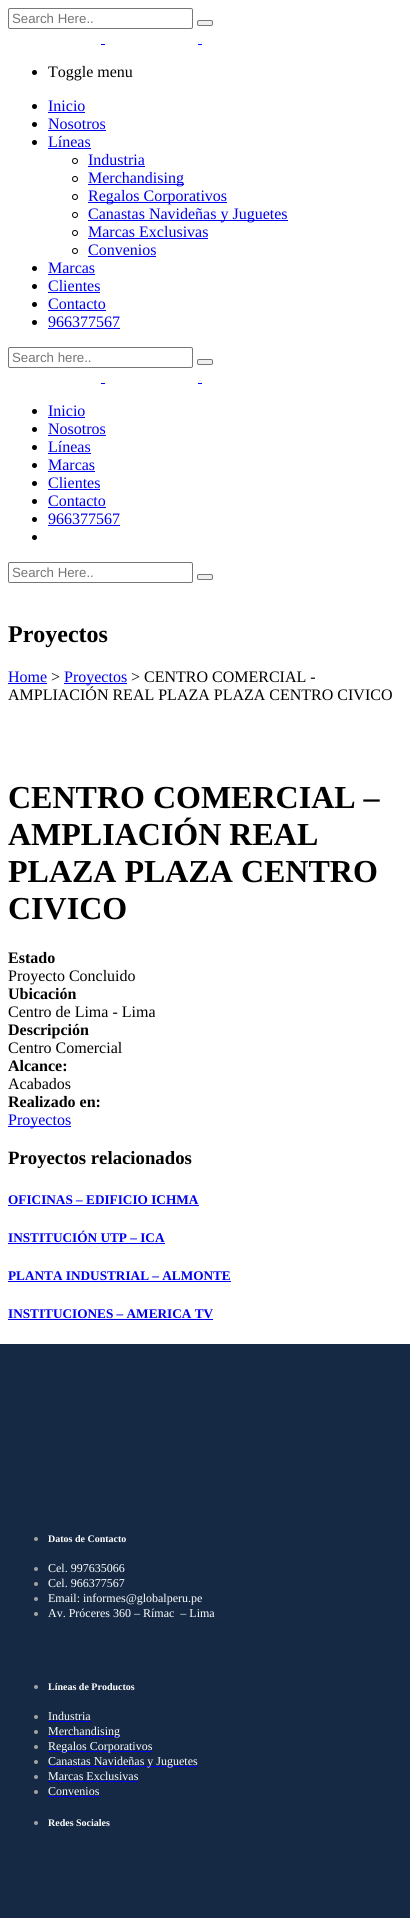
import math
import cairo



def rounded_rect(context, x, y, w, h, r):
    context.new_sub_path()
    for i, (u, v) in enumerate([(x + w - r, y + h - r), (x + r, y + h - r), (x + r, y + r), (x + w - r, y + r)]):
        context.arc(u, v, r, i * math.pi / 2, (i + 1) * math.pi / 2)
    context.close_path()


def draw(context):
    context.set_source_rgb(1, 1, 1)
    context.paint()
    rounded_rect(context, 8.5, 8.5, 184, 20, 1.5)
    context.set_source_rgb(118 / 255, 118 / 255, 118 / 255)
    context.set_line_width(1)
    context.stroke()
    context.set_source_rgb(239 / 255, 239 / 255, 239 / 255)
    rounded_rect(context, 197.5, 20.5, 15, 5, 1.5)
    context.fill_preserve()
    context.set_source_rgb(118 / 255, 118 / 255, 118 / 255)
    context.stroke()
    context.set_source_rgb(0, 0, 238 / 255)
    context.rectangle(101, 44, 4, 1)
    context.fill()
    context.rectangle(198, 44, 4, 1)
    context.fill()
    context.set_source_rgb(0, 0, 0)
    context.arc(34.5, 72.5, 2.5, 0, 2 * math.pi)
    context.fill()
    context.arc(34.5, 106.5, 2.5, 0, 2 * math.pi)
    context.fill()
    context.set_source_rgb(0, 0, 238 / 255)
    context.rectangle(48, 112, 37, 1)
    context.fill()
    context.set_source_rgb(0, 0, 0)
    context.arc(34.5, 124.5, 2.5, 0, 2 * math.pi)
    context.fill()
    context.set_source_rgb(0, 0, 238 / 255)
    context.rectangle(48, 130, 58, 1)
    context.fill()
    context.set_source_rgb(0, 0, 0)
    context.arc(34.5, 142.5, 2.5, 0, 2 * math.pi)
    context.fill()
    context.set_source_rgb(0, 0, 238 / 255)
    context.rectangle(48, 148, 43, 1)
    context.fill()
    context.arc(75, 161, 2.5, 0, 2 * math.pi)
    context.set_source_rgb(0, 0, 0)
    context.stroke()
    context.set_source_rgb(0, 0, 238 / 255)
    context.rectangle(88, 166, 57, 1)
    context.fill()
    context.arc(75, 179, 2.5, 0, 2 * math.pi)
    context.set_source_rgb(0, 0, 0)
    context.stroke()
    context.set_source_rgb(0, 0, 238 / 255)
    context.rectangle(88, 184, 96, 1)
    context.fill()
    context.arc(75, 197, 2.5, 0, 2 * math.pi)
    context.set_source_rgb(0, 0, 0)
    context.stroke()
    context.set_source_rgb(0, 0, 238 / 255)
    context.rectangle(88, 202, 139, 1)
    context.fill()
    context.arc(75, 215, 2.5, 0, 2 * math.pi)
    context.set_source_rgb(0, 0, 0)
    context.stroke()
    context.set_source_rgb(0, 0, 238 / 255)
    context.rectangle(88, 220, 200, 1)
    context.fill()
    context.arc(75, 233, 2.5, 0, 2 * math.pi)
    context.set_source_rgb(0, 0, 0)
    context.stroke()
    context.set_source_rgb(0, 0, 238 / 255)
    context.rectangle(88, 238, 120, 1)
    context.fill()
    context.arc(75, 251, 2.5, 0, 2 * math.pi)
    context.set_source_rgb(0, 0, 0)
    context.stroke()
    context.set_source_rgb(0, 0, 238 / 255)
    context.rectangle(88, 256, 68, 1)
    context.fill()
    context.set_source_rgb(0, 0, 0)
    context.arc(34.5, 268.5, 2.5, 0, 2 * math.pi)
    context.fill()
    context.set_source_rgb(0, 0, 238 / 255)
    context.rectangle(48, 274, 47, 1)
    context.fill()
    context.set_source_rgb(0, 0, 0)
    context.arc(34.5, 286.5, 2.5, 0, 2 * math.pi)
    context.fill()
    context.set_source_rgb(0, 0, 238 / 255)
    context.rectangle(48, 292, 52, 1)
    context.fill()
    context.set_source_rgb(0, 0, 0)
    context.arc(34.5, 304.5, 2.5, 0, 2 * math.pi)
    context.fill()
    context.set_source_rgb(0, 0, 238 / 255)
    context.rectangle(48, 310, 58, 1)
    context.fill()
    context.set_source_rgb(0, 0, 0)
    context.arc(34.5, 322.5, 2.5, 0, 2 * math.pi)
    context.fill()
    context.set_source_rgb(0, 0, 238 / 255)
    context.rectangle(48, 328, 72, 1)
    context.fill()
    rounded_rect(context, 8.5, 347.5, 184, 20, 1.5)
    context.set_source_rgb(118 / 255, 118 / 255, 118 / 255)
    context.stroke()
    context.set_source_rgb(239 / 255, 239 / 255, 239 / 255)
    rounded_rect(context, 197.5, 359.5, 15, 5, 1.5)
    context.fill_preserve()
    context.set_source_rgb(118 / 255, 118 / 255, 118 / 255)
    context.stroke()
    context.set_source_rgb(0, 0, 238 / 255)
    context.rectangle(101, 383, 4, 1)
    context.fill()
    context.rectangle(198, 383, 4, 1)
    context.fill()
    context.set_source_rgb(0, 0, 0)
    context.arc(34.5, 411.5, 2.5, 0, 2 * math.pi)
    context.fill()
    context.set_source_rgb(0, 0, 238 / 255)
    context.rectangle(48, 417, 37, 1)
    context.fill()
    context.set_source_rgb(0, 0, 0)
    context.arc(34.5, 429.5, 2.5, 0, 2 * math.pi)
    context.fill()
    context.set_source_rgb(0, 0, 238 / 255)
    context.rectangle(48, 435, 58, 1)
    context.fill()
    context.set_source_rgb(0, 0, 0)
    context.arc(34.5, 447.5, 2.5, 0, 2 * math.pi)
    context.fill()
    context.set_source_rgb(0, 0, 238 / 255)
    context.rectangle(48, 453, 43, 1)
    context.fill()
    context.set_source_rgb(0, 0, 0)
    context.arc(34.5, 465.5, 2.5, 0, 2 * math.pi)
    context.fill()
    context.set_source_rgb(0, 0, 238 / 255)
    context.rectangle(48, 471, 47, 1)
    context.fill()
    context.set_source_rgb(0, 0, 0)
    context.arc(34.5, 483.5, 2.5, 0, 2 * math.pi)
    context.fill()
    context.set_source_rgb(0, 0, 238 / 255)
    context.rectangle(48, 489, 52, 1)
    context.fill()
    context.set_source_rgb(0, 0, 0)
    context.arc(34.5, 501.5, 2.5, 0, 2 * math.pi)
    context.fill()
    context.set_source_rgb(0, 0, 238 / 255)
    context.rectangle(48, 507, 58, 1)
    context.fill()
    context.set_source_rgb(0, 0, 0)
    context.arc(34.5, 519.5, 2.5, 0, 2 * math.pi)
    context.fill()
    context.set_source_rgb(0, 0, 238 / 255)
    context.rectangle(48, 525, 72, 1)
    context.fill()
    context.set_source_rgb(0, 0, 0)
    context.arc(34.5, 537.5, 2.5, 0, 2 * math.pi)
    context.fill()
    rounded_rect(context, 8.5, 562.5, 184, 20, 1.5)
    context.set_source_rgb(118 / 255, 118 / 255, 118 / 255)
    context.stroke()
    context.set_source_rgb(239 / 255, 239 / 255, 239 / 255)
    rounded_rect(context, 197.5, 574.5, 15, 5, 1.5)
    context.fill_preserve()
    context.set_source_rgb(118 / 255, 118 / 255, 118 / 255)
    context.stroke()
    context.set_source_rgb(0, 0, 238 / 255)
    context.rectangle(8, 683, 39, 1)
    context.fill()
    context.rectangle(64, 683, 63, 1)
    context.fill()
    context.rectangle(8, 1126, 63, 1)
    context.fill()
    context.rectangle(8, 1205, 191, 1)
    context.fill()
    context.rectangle(8, 1243, 157, 1)
    context.fill()
    context.rectangle(8, 1281, 223, 1)
    context.fill()
    context.rectangle(8, 1319, 205, 1)
    context.fill()
    context.set_source_rgb(21 / 255, 41 / 255, 68 / 255)
    context.rectangle(0, 1344, 410, 574)
    context.fill()
    context.set_source_rgb(161 / 255, 161 / 255, 161 / 255)
    context.arc(36, 1539, 2, 0, 2 * math.pi)
    context.fill()
    context.arc(36, 1569, 2, 0, 2 * math.pi)
    context.fill()
    context.arc(36, 1584, 2, 0, 2 * math.pi)
    context.fill()
    context.arc(36, 1599, 2, 0, 2 * math.pi)
    context.fill()
    context.arc(36, 1614, 2, 0, 2 * math.pi)
    context.fill()
    context.arc(36, 1687, 2, 0, 2 * math.pi)
    context.fill()
    context.arc(36, 1717, 2, 0, 2 * math.pi)
    context.fill()
    context.set_source_rgb(0, 0, 238 / 255)
    context.rectangle(48, 1721, 43, 1)
    context.fill()
    context.set_source_rgb(161 / 255, 161 / 255, 161 / 255)
    context.arc(36, 1732, 2, 0, 2 * math.pi)
    context.fill()
    context.set_source_rgb(0, 0, 238 / 255)
    context.rectangle(48, 1736, 72, 1)
    context.fill()
    context.set_source_rgb(161 / 255, 161 / 255, 161 / 255)
    context.arc(36, 1747, 2, 0, 2 * math.pi)
    context.fill()
    context.set_source_rgb(0, 0, 238 / 255)
    context.rectangle(48, 1751, 104, 1)
    context.fill()
    context.set_source_rgb(161 / 255, 161 / 255, 161 / 255)
    context.arc(36, 1762, 2, 0, 2 * math.pi)
    context.fill()
    context.set_source_rgb(0, 0, 238 / 255)
    context.rectangle(48, 1766, 150, 1)
    context.fill()
    context.set_source_rgb(161 / 255, 161 / 255, 161 / 255)
    context.arc(36, 1777, 2, 0, 2 * math.pi)
    context.fill()
    context.set_source_rgb(0, 0, 238 / 255)
    context.rectangle(48, 1781, 90, 1)
    context.fill()
    context.set_source_rgb(161 / 255, 161 / 255, 161 / 255)
    context.arc(36, 1792, 2, 0, 2 * math.pi)
    context.fill()
    context.set_source_rgb(0, 0, 238 / 255)
    context.rectangle(48, 1796, 51, 1)
    context.fill()
    context.set_source_rgb(161 / 255, 161 / 255, 161 / 255)
    context.arc(36, 1823, 2, 0, 2 * math.pi)
    context.fill()
    context.select_font_face("Liberation Sans")
    context.set_font_size(13.25)
    context.set_source_rgb(117 / 255, 117 / 255, 117 / 255)
    context.move_to(12, 23)
    context.show_text("Search Here..")
    context.select_font_face("Liberation Serif")
    context.set_font_size(16)
    context.set_source_rgb(0, 0, 0)
    context.move_to(48, 77)
    context.show_text("Toggle menu")
    context.set_source_rgb(0, 0, 238 / 255)
    context.move_to(48, 111)
    context.show_text("Inicio")
    context.move_to(48, 129)
    context.show_text("Nosotros")
    context.move_to(48, 147)
    context.show_text("Líneas")
    context.move_to(88, 165)
    context.show_text("Industria")
    context.move_to(88, 183)
    context.show_text("Merchandising")
    context.move_to(88, 201)
    context.show_text("Regalos Corporativos")
    context.move_to(88, 219)
    context.show_text("Canastas Navideñas y Juguetes")
    context.move_to(88, 237)
    context.show_text("Marcas Exclusivas")
    context.move_to(88, 255)
    context.show_text("Convenios")
    context.move_to(48, 273)
    context.show_text("Marcas")
    context.move_to(48, 291)
    context.show_text("Clientes")
    context.move_to(48, 309)
    context.show_text("Contacto")
    context.move_to(48, 327)
    context.show_text("966377567")
    context.select_font_face("Liberation Sans")
    context.set_font_size(13.25)
    context.set_source_rgb(117 / 255, 117 / 255, 117 / 255)
    context.move_to(12, 362)
    context.show_text("Search here..")
    context.select_font_face("Liberation Serif")
    context.set_font_size(16)
    context.set_source_rgb(0, 0, 238 / 255)
    context.move_to(48, 416)
    context.show_text("Inicio")
    context.move_to(48, 434)
    context.show_text("Nosotros")
    context.move_to(48, 452)
    context.show_text("Líneas")
    context.move_to(48, 470)
    context.show_text("Marcas")
    context.move_to(48, 488)
    context.show_text("Clientes")
    context.move_to(48, 506)
    context.show_text("Contacto")
    context.move_to(48, 524)
    context.show_text("966377567")
    context.select_font_face("Liberation Sans")
    context.set_font_size(13.25)
    context.set_source_rgb(117 / 255, 117 / 255, 117 / 255)
    context.move_to(12, 577)
    context.show_text("Search Here..")
    context.select_font_face("Liberation Serif", cairo.FontSlant.NORMAL, cairo.FontWeight.BOLD)
    context.set_font_size(24)
    context.set_source_rgb(0, 0, 0)
    context.move_to(8, 642)
    context.show_text("Proyectos")
    context.select_font_face("Liberation Serif")
    context.set_font_size(16)
    context.set_source_rgb(0, 0, 238 / 255)
    context.move_to(8, 682)
    context.show_text("Home")
    context.set_source_rgb(0, 0, 0)
    context.move_to(51, 682)
    context.show_text(">")
    context.set_source_rgb(0, 0, 238 / 255)
    context.move_to(64, 682)
    context.show_text("Proyectos")
    context.set_source_rgb(0, 0, 0)
    context.move_to(131, 682)
    context.show_text("> CENTRO COMERCIAL -")
    context.move_to(8, 700)
    context.show_text("AMPLIACIÓN REAL PLAZA PLAZA CENTRO CIVICO")
    context.select_font_face("Liberation Serif", cairo.FontSlant.NORMAL, cairo.FontWeight.BOLD)
    context.set_font_size(32)
    context.move_to(8, 808)
    context.show_text("CENTRO COMERCIAL –")
    context.move_to(8, 845)
    context.show_text("AMPLIACIÓN REAL")
    context.move_to(8, 882)
    context.show_text("PLAZA PLAZA CENTRO")
    context.move_to(8, 919)
    context.show_text("CIVICO")
    context.set_font_size(16)
    context.move_to(8, 963)
    context.show_text("Estado")
    context.select_font_face("Liberation Serif")
    context.move_to(8, 981)
    context.show_text("Proyecto Concluido")
    context.select_font_face("Liberation Serif", cairo.FontSlant.NORMAL, cairo.FontWeight.BOLD)
    context.move_to(8, 999)
    context.show_text("Ubicación")
    context.select_font_face("Liberation Serif")
    context.move_to(8, 1017)
    context.show_text("Centro de Lima - Lima")
    context.select_font_face("Liberation Serif", cairo.FontSlant.NORMAL, cairo.FontWeight.BOLD)
    context.move_to(8, 1035)
    context.show_text("Descripción")
    context.select_font_face("Liberation Serif")
    context.move_to(8, 1053)
    context.show_text("Centro Comercial")
    context.select_font_face("Liberation Serif", cairo.FontSlant.NORMAL, cairo.FontWeight.BOLD)
    context.move_to(8, 1071)
    context.show_text("Alcance:")
    context.select_font_face("Liberation Serif")
    context.move_to(8, 1089)
    context.show_text("Acabados")
    context.select_font_face("Liberation Serif", cairo.FontSlant.NORMAL, cairo.FontWeight.BOLD)
    context.move_to(8, 1107)
    context.show_text("Realizado en:")
    context.select_font_face("Liberation Serif")
    context.set_source_rgb(0, 0, 238 / 255)
    context.move_to(8, 1125)
    context.show_text("Proyectos")
    context.select_font_face("Liberation Serif", cairo.FontSlant.NORMAL, cairo.FontWeight.BOLD)
    context.set_font_size(18.75)
    context.set_source_rgb(0, 0, 0)
    context.move_to(8, 1164)
    context.show_text("Proyectos relacionados")
    context.set_font_size(13.25)
    context.set_source_rgb(0, 0, 238 / 255)
    context.move_to(8, 1204)
    context.show_text("OFICINAS – EDIFICIO ICHMA")
    context.move_to(8, 1242)
    context.show_text("INSTITUCIÓN UTP – ICA")
    context.move_to(8, 1280)
    context.show_text("PLANTA INDUSTRIAL – ALMONTE")
    context.move_to(8, 1318)
    context.show_text("INSTITUCIONES – AMERICA TV")
    context.set_font_size(10)
    context.set_source_rgb(1, 1, 1)
    context.move_to(48, 1542)
    context.show_text("Datos de Contacto")
    context.select_font_face("Liberation Serif")
    context.set_font_size(12)
    context.move_to(48, 1572)
    context.show_text("Cel. 997635066")
    context.move_to(48, 1587)
    context.show_text("Cel. 966377567")
    context.move_to(48, 1602)
    context.show_text("Email: informes@globalperu.pe")
    context.move_to(48, 1617)
    context.show_text("Av. Próceres 360 – Rímac  – Lima")
    context.select_font_face("Liberation Serif", cairo.FontSlant.NORMAL, cairo.FontWeight.BOLD)
    context.set_font_size(10)
    context.move_to(48, 1690)
    context.show_text("Líneas de Productos")
    context.select_font_face("Liberation Serif")
    context.set_font_size(12)
    context.move_to(48, 1720)
    context.show_text("Industria")
    context.move_to(48, 1735)
    context.show_text("Merchandising")
    context.move_to(48, 1750)
    context.show_text("Regalos Corporativos")
    context.move_to(48, 1765)
    context.show_text("Canastas Navideñas y Juguetes")
    context.move_to(48, 1780)
    context.show_text("Marcas Exclusivas")
    context.move_to(48, 1795)
    context.show_text("Convenios")
    context.select_font_face("Liberation Serif", cairo.FontSlant.NORMAL, cairo.FontWeight.BOLD)
    context.set_font_size(10)
    context.move_to(48, 1826)
    context.show_text("Redes Sociales")


surface = cairo.ImageSurface(cairo.Format.RGB24, 410, 1918)
context = cairo.Context(surface)
options = cairo.FontOptions()
options.set_hint_metrics(cairo.HintMetrics.OFF)
options.set_hint_style(cairo.HintStyle.NONE)
context.set_font_options(options)
context.set_miter_limit(4)
draw(context)
surface.write_to_png("out.png")
